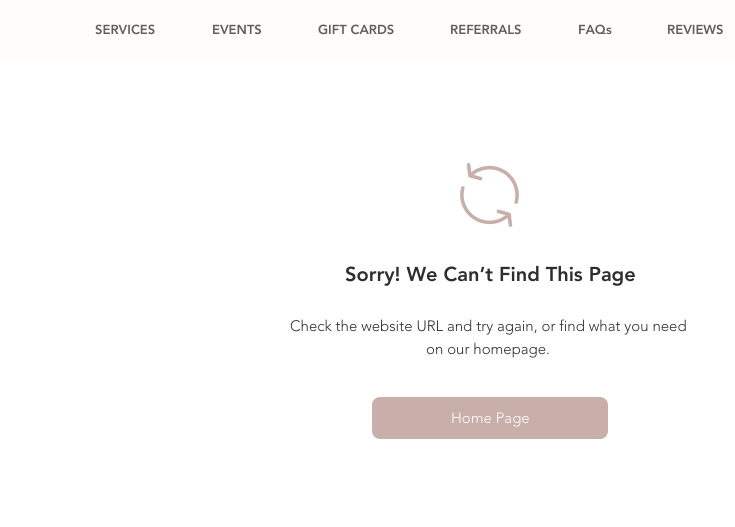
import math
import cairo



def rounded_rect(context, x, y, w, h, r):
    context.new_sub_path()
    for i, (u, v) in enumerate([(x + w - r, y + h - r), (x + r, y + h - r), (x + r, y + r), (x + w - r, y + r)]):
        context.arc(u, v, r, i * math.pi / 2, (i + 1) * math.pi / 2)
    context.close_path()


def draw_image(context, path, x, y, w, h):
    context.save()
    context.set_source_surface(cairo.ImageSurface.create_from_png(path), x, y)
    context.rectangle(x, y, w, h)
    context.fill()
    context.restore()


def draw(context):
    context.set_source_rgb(1, 1, 1)
    context.paint()
    context.set_source_rgb(1, 253 / 255, 252 / 255)
    context.rectangle(0, 0, 735, 60)
    context.fill()
    draw_image(context, "images/1.png", 460, 163, 59, 64)
    context.set_source_rgb(200 / 255, 175 / 255, 169 / 255)
    rounded_rect(context, 372, 397, 236, 42, 8)
    context.fill()
    context.select_font_face("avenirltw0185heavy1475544 Black")
    context.set_font_size(13)
    context.set_source_rgb(96 / 255, 94 / 255, 94 / 255)
    context.move_to(95, 34)
    context.show_text("SERVICES")
    context.move_to(212, 34)
    context.show_text("EVENTS")
    context.move_to(318, 34)
    context.show_text("GIFT CARDS")
    context.move_to(450, 34)
    context.show_text("REFERRALS")
    context.move_to(578, 34)
    context.show_text("FAQs")
    context.move_to(667, 34)
    context.show_text("REVIEWS")
    context.set_font_size(20)
    context.set_source_rgb(47 / 255, 46 / 255, 46 / 255)
    context.move_to(345, 281)
    context.show_text("Sorry! We Can’t Find This Page")
    context.select_font_face("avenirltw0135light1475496 Light")
    context.set_font_size(15)
    context.move_to(290, 331)
    context.show_text("Check the website URL and try again, or find what you need")
    context.move_to(426, 354)
    context.show_text("on our homepage.")
    context.set_source_rgb(1, 1, 1)
    context.move_to(451, 423)
    context.show_text("Home Page")


surface = cairo.ImageSurface(cairo.Format.RGB24, 735, 527)
context = cairo.Context(surface)
options = cairo.FontOptions()
options.set_hint_metrics(cairo.HintMetrics.OFF)
options.set_hint_style(cairo.HintStyle.NONE)
context.set_font_options(options)
context.set_miter_limit(4)
draw(context)
surface.write_to_png("out.png")
